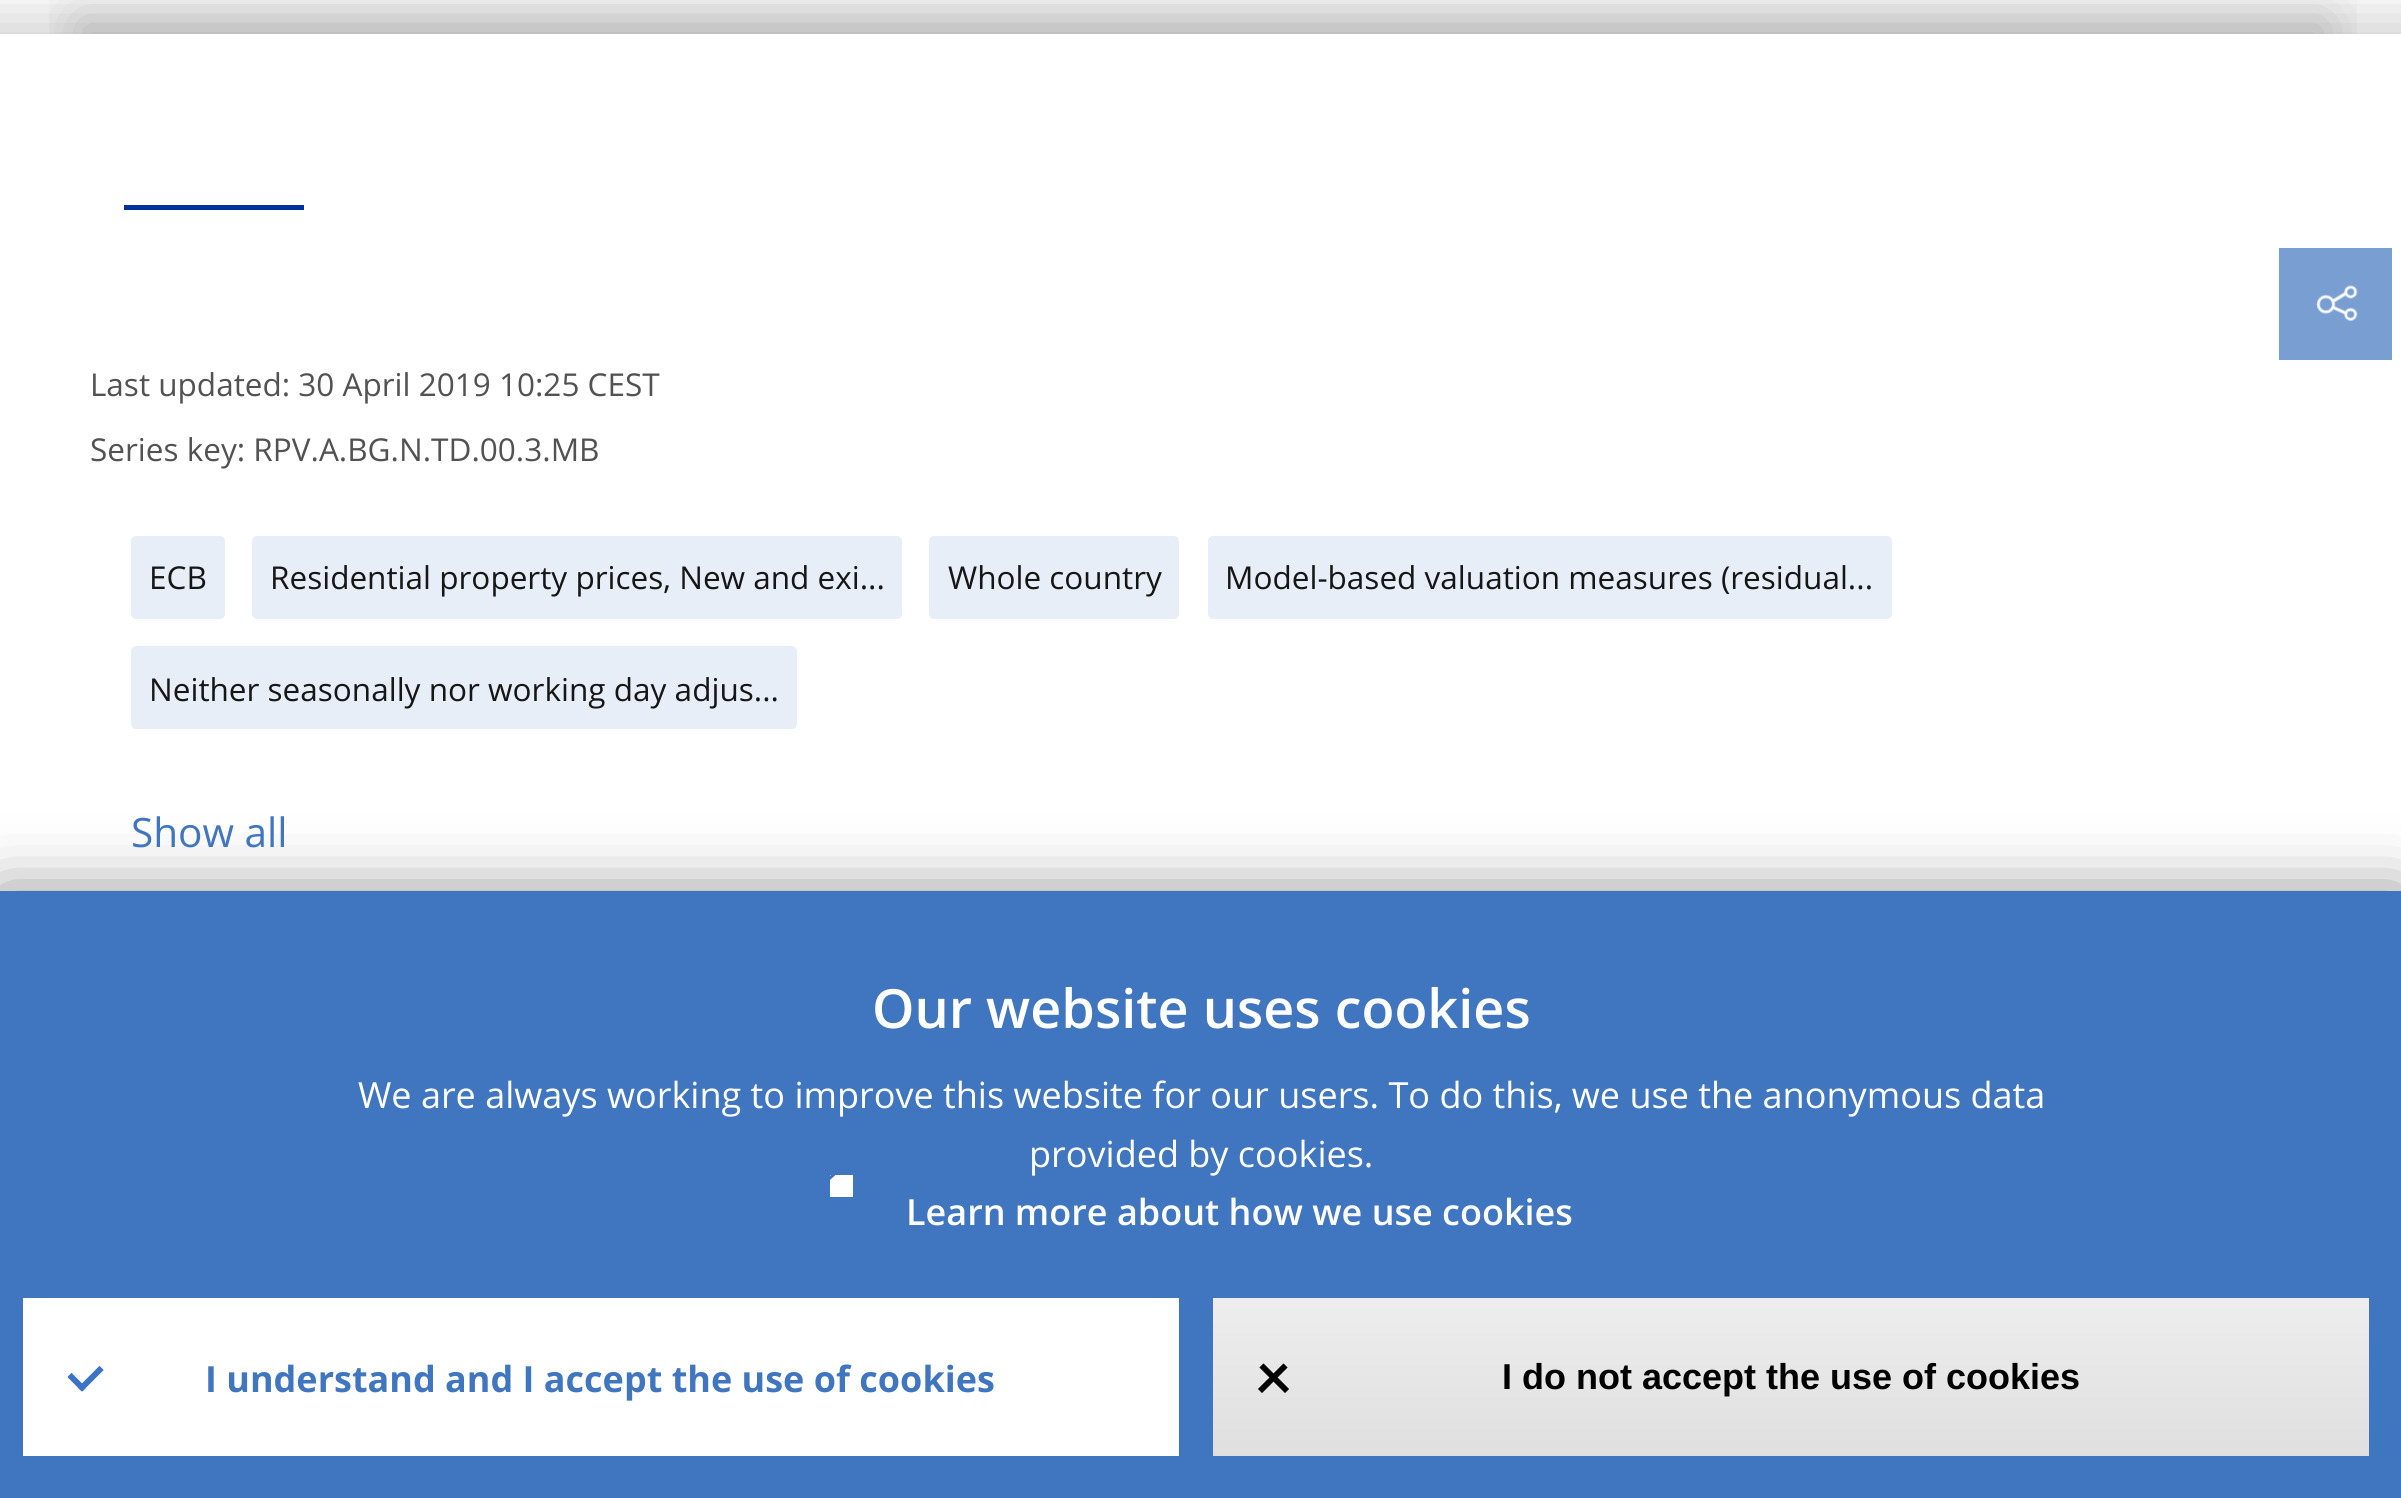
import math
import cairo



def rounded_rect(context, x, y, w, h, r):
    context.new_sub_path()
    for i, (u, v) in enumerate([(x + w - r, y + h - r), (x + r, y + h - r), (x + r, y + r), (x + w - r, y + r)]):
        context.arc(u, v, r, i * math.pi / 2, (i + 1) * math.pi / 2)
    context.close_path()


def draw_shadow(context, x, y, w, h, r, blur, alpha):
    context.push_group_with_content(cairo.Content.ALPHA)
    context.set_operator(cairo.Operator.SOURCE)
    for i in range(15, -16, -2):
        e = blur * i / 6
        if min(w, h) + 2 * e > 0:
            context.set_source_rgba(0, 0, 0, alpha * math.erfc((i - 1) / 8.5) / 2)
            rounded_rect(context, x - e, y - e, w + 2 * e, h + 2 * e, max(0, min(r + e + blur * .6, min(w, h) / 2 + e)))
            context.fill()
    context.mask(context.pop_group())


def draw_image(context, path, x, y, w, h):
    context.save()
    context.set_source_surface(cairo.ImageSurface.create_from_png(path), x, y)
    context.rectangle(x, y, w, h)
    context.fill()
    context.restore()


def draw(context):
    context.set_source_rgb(1, 1, 1)
    context.paint()
    context.save()
    context.rectangle(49, 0, 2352, 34)
    context.clip()
    context.set_source_rgb(0, 0, 0)
    draw_shadow(context, 77, 18, 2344, 414, 0, 28, 0.18)
    context.restore()
    context.save()
    context.rectangle(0, 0, 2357, 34)
    context.clip()
    context.set_source_rgb(0, 0, 0)
    draw_shadow(context, -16, 18, 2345, 414, 0, 28, 0.18)
    context.restore()
    context.set_source_rgb(0, 50 / 255, 153 / 255)
    context.rectangle(124, 205, 180, 5)
    context.fill()
    context.set_source_rgb(121 / 255, 159 / 255, 210 / 255)
    context.rectangle(2279, 248, 113, 112)
    context.fill()
    draw_image(context, "images/1.png", 2316, 285, 42, 37)
    context.set_source_rgb(231 / 255, 238 / 255, 248 / 255)
    rounded_rect(context, 131, 536, 94, 83, 5)
    context.fill()
    rounded_rect(context, 252, 536, 650, 83, 5)
    context.fill()
    rounded_rect(context, 929, 536, 250, 83, 5)
    context.fill()
    rounded_rect(context, 1208, 536, 684, 83, 5)
    context.fill()
    rounded_rect(context, 131, 646, 666, 83, 5)
    context.fill()
    context.set_source_rgb(0, 0, 0)
    draw_shadow(context, 0, 896, 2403, 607, 0, 34, 0.5)
    context.set_source_rgb(64 / 255, 118 / 255, 191 / 255)
    context.rectangle(0, 891, 2401, 607)
    context.fill()
    context.set_source_rgb(1, 1, 1)
    context.rectangle(830, 1175, 23, 22)
    context.fill()
    context.save()
    context.rectangle(830, 1175, 23, 22)
    context.clip()
    context.set_source_rgb(64 / 255, 118 / 255, 191 / 255)
    context.new_path()
    context.move_to(825, 1184.5)
    context.line_to(835.5, 1175)
    context.line_to(825, 1164.5)
    context.line_to(825, 1169)
    context.line_to(831.5, 1174.5)
    context.line_to(825, 1180.5)
    context.close_path()
    context.fill()
    context.restore()
    context.rectangle(23, 1298, 1156, 158)
    context.fill()
    context.save()
    context.rectangle(68, 1366, 36, 25)
    context.clip()
    context.new_path()
    context.move_to(71.5, 1377)
    context.line_to(82, 1387.5)
    context.set_source_rgb(59 / 255, 116 / 255, 195 / 255)
    context.set_line_width(5.9)
    context.set_line_cap(cairo.LineCap.SQUARE)
    context.stroke()
    context.restore()
    context.new_path()
    context.move_to(82, 1387.5)
    context.line_to(99.5, 1370)
    context.set_source_rgb(59 / 255, 116 / 255, 195 / 255)
    context.set_line_width(5.9)
    context.set_line_cap(cairo.LineCap.SQUARE)
    context.stroke()
    gradient = cairo.LinearGradient(1791, 1298, 1791, 1456)
    gradient.add_color_stop_rgba(0.05, 237 / 255, 237 / 255, 237 / 255, 1)
    gradient.add_color_stop_rgba(1, 223 / 255, 223 / 255, 223 / 255, 1)
    context.set_source(gradient)
    context.rectangle(1213, 1298, 1156, 158)
    context.fill()
    context.new_path()
    context.move_to(1285, 1389)
    context.line_to(1263.5, 1367.5)
    context.move_to(1262, 1389)
    context.line_to(1283.5, 1367.5)
    context.set_source_rgb(0, 0, 0)
    context.set_line_width(5.8)
    context.stroke()
    context.select_font_face("Open Sans")
    context.set_font_size(31.5)
    context.set_source_rgb(82 / 255, 82 / 255, 82 / 255)
    context.move_to(90, 396)
    context.show_text("Last updated: 30 April 2019 10:25 CEST")
    context.move_to(90, 461)
    context.show_text("Series key: RPV.A.BG.N.TD.00.3.MB")
    context.set_source_rgb(22 / 255, 22 / 255, 22 / 255)
    context.move_to(149, 589)
    context.show_text("ECB")
    context.move_to(270, 589)
    context.show_text("Residential property prices, New and exi...")
    context.move_to(948, 589)
    context.show_text("Whole country")
    context.move_to(1225, 589)
    context.show_text("Model-based valuation measures (residual...")
    context.move_to(149, 701)
    context.show_text("Neither seasonally nor working day adjus...")
    context.set_font_size(40.5)
    context.set_source_rgb(64 / 255, 118 / 255, 191 / 255)
    context.move_to(131, 847)
    context.show_text("Show all")
    context.select_font_face("Open Sans SemiBold")
    context.set_font_size(54)
    context.set_source_rgb(1, 1, 1)
    context.move_to(872, 1028)
    context.show_text("Our website uses cookies")
    context.select_font_face("Open Sans")
    context.set_font_size(36)
    context.move_to(358, 1108)
    context.show_text("We are always working to improve this website for our users. To do this, we use the anonymous data")
    context.move_to(1029, 1167)
    context.show_text("provided by cookies.")
    context.select_font_face("Open Sans SemiBold")
    context.move_to(906, 1225)
    context.show_text("Learn more about how we use cookies")
    context.select_font_face("Open Sans", cairo.FontSlant.NORMAL, cairo.FontWeight.BOLD)
    context.set_source_rgb(64 / 255, 118 / 255, 191 / 255)
    context.move_to(205, 1392)
    context.show_text("I understand and I accept the use of cookies")
    context.select_font_face("Liberation Sans", cairo.FontSlant.NORMAL, cairo.FontWeight.BOLD)
    context.set_source_rgb(0, 0, 0)
    context.move_to(1502, 1389)
    context.show_text("I do not accept the use of cookies")


surface = cairo.ImageSurface(cairo.Format.RGB24, 2401, 1498)
context = cairo.Context(surface)
options = cairo.FontOptions()
options.set_hint_metrics(cairo.HintMetrics.OFF)
options.set_hint_style(cairo.HintStyle.NONE)
context.set_font_options(options)
context.set_miter_limit(4)
draw(context)
surface.write_to_png("out.png")
